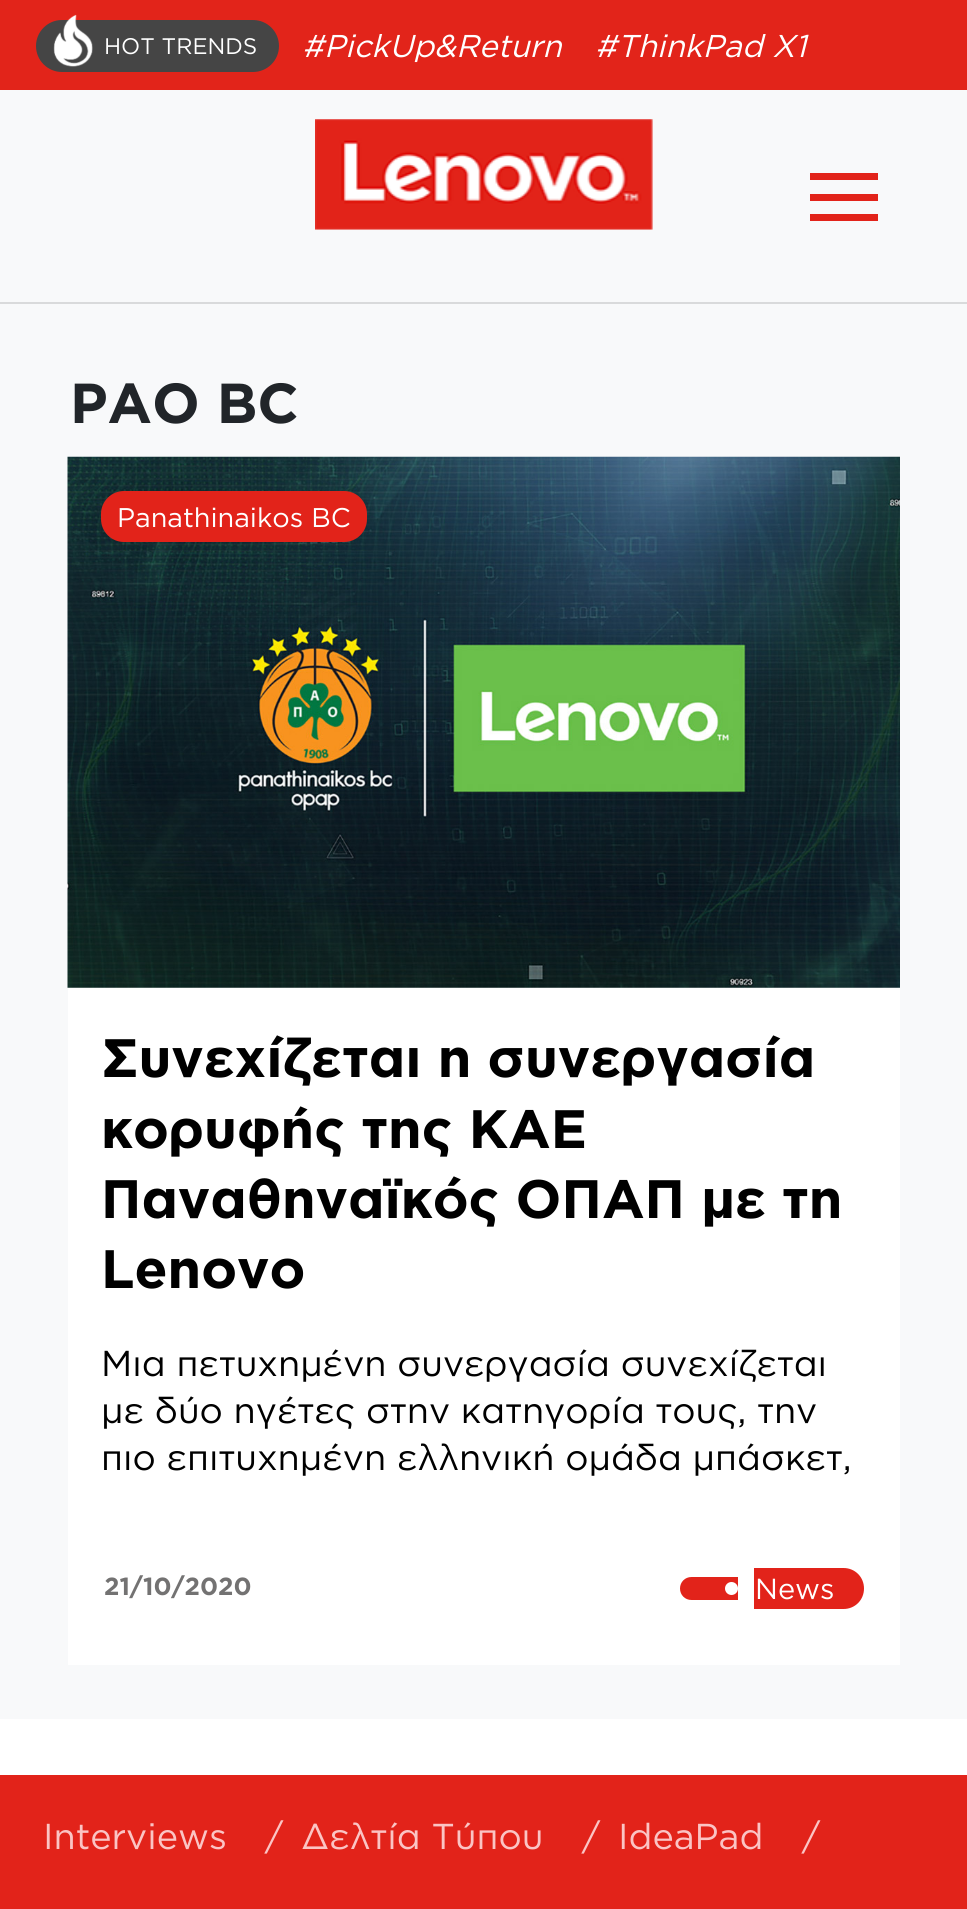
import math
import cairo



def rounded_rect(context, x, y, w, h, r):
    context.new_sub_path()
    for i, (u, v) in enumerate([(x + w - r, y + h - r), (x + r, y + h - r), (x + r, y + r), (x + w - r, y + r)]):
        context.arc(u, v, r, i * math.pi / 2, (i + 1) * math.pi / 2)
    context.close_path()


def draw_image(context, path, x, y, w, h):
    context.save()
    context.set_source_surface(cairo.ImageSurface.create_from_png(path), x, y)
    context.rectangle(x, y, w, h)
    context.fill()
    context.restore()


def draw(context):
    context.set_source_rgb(248 / 255, 249 / 255, 250 / 255)
    context.paint()
    context.set_source_rgb(226 / 255, 36 / 255, 26 / 255)
    context.rectangle(0, 0, 967, 90)
    context.fill()
    context.set_source_rgb(69 / 255, 69 / 255, 69 / 255)
    rounded_rect(context, 36, 20, 243, 52, 26)
    context.fill()
    draw_image(context, "images/1.png", 53, 14, 40, 53)
    context.set_source_rgb(217 / 255, 218 / 255, 219 / 255)
    context.rectangle(0, 302, 967, 2)
    context.fill()
    draw_image(context, "images/2.png", 315, 119, 338, 111)
    context.set_source_rgb(226 / 255, 35 / 255, 26 / 255)
    context.rectangle(810, 173, 68, 7)
    context.fill()
    context.rectangle(810, 194, 68, 7)
    context.fill()
    context.rectangle(810, 214, 68, 7)
    context.fill()
    draw_image(context, "images/3.png", 67, 456, 833, 532)
    rounded_rect(context, 101, 491, 266, 51, 23)
    context.fill()
    context.set_source_rgb(1, 1, 1)
    context.rectangle(68, 988, 832, 677)
    context.fill()
    context.set_source_rgb(226 / 255, 35 / 255, 26 / 255)
    context.new_path()
    context.move_to(691.5, 1577)
    context.line_to(738, 1577)
    context.line_to(738, 1600)
    context.line_to(691.5, 1600)
    context.curve_to(685, 1600, 680, 1595, 680, 1588.5)
    context.curve_to(680, 1582, 685, 1577, 691.5, 1577)
    context.close_path()
    context.fill()
    context.new_path()
    context.move_to(754, 1568)
    context.line_to(843.5, 1568)
    context.curve_to(855, 1568, 864, 1577, 864, 1588.5)
    context.curve_to(864, 1600, 855, 1609, 843.5, 1609)
    context.line_to(754, 1609)
    context.close_path()
    context.fill()
    context.set_source_rgb(1, 1, 1)
    context.arc(731.5, 1588.5, 6.5, 0, 2 * math.pi)
    context.fill()
    context.rectangle(0, 1719, 967, 56)
    context.fill()
    context.set_source_rgb(226 / 255, 35 / 255, 26 / 255)
    context.rectangle(0, 1775, 967, 134)
    context.fill()
    context.select_font_face("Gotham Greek")
    context.set_font_size(22.5)
    context.set_source_rgb(1, 1, 1)
    context.move_to(104, 54)
    context.show_text("HOT TRENDS")
    context.select_font_face("Gotham Greek", cairo.FontSlant.ITALIC)
    context.set_font_size(31.5)
    context.move_to(302, 57)
    context.show_text("#PickUp&Return")
    context.move_to(595, 57)
    context.show_text("#ThinkPad X1")
    context.select_font_face("Gotham Greek", cairo.FontSlant.NORMAL, cairo.FontWeight.BOLD)
    context.set_font_size(56.25)
    context.set_source_rgb(33 / 255, 37 / 255, 41 / 255)
    context.move_to(70, 423)
    context.show_text("PAO BC")
    context.select_font_face("Gotham Greek")
    context.set_font_size(27)
    context.set_source_rgb(1, 1, 1)
    context.move_to(117, 527)
    context.show_text("Panathinaikos BC")
    context.select_font_face("Gotham Greek", cairo.FontSlant.NORMAL, cairo.FontWeight.BOLD)
    context.set_font_size(54)
    context.set_source_rgb(0, 0, 0)
    context.move_to(101, 1077)
    context.show_text("Συνεχίζεται η συνεργασία")
    context.move_to(101, 1148)
    context.show_text("κορυφής της ΚΑΕ")
    context.move_to(101, 1218)
    context.show_text("Παναθηναϊκός ΟΠΑΠ με τη")
    context.move_to(101, 1288)
    context.show_text("Lenovo")
    context.select_font_face("Gotham Greek")
    context.set_font_size(36)
    context.move_to(101, 1376)
    context.show_text("Μια πετυχημένη συνεργασία συνεχίζεται")
    context.move_to(101, 1423)
    context.show_text("με δύο ηγέτες στην κατηγορία τους, την")
    context.move_to(101, 1470)
    context.show_text("πιο επιτυχημένη ελληνική ομάδα μπάσκετ,")
    context.select_font_face("Gotham Greek", cairo.FontSlant.NORMAL, cairo.FontWeight.BOLD)
    context.set_font_size(24.75)
    context.set_source_rgb(115 / 255, 114 / 255, 114 / 255)
    context.move_to(104, 1595)
    context.show_text("21/10/2020")
    context.select_font_face("Gotham Greek")
    context.set_font_size(29)
    context.set_source_rgb(1, 1, 1)
    context.move_to(755, 1599)
    context.show_text("News")
    context.set_font_size(36)
    context.set_source_rgb(251 / 255, 196 / 255, 196 / 255)
    context.move_to(43, 1849)
    context.show_text("Interviews")
    context.move_to(265, 1849)
    context.show_text("/")
    context.move_to(301, 1849)
    context.show_text("Δελτία Τύπου")
    context.move_to(582, 1849)
    context.show_text("/")
    context.move_to(618, 1849)
    context.show_text("IdeaPad")
    context.move_to(802, 1849)
    context.show_text("/")


surface = cairo.ImageSurface(cairo.Format.RGB24, 967, 1909)
context = cairo.Context(surface)
options = cairo.FontOptions()
options.set_hint_metrics(cairo.HintMetrics.OFF)
options.set_hint_style(cairo.HintStyle.NONE)
context.set_font_options(options)
context.set_miter_limit(4)
draw(context)
surface.write_to_png("out.png")
